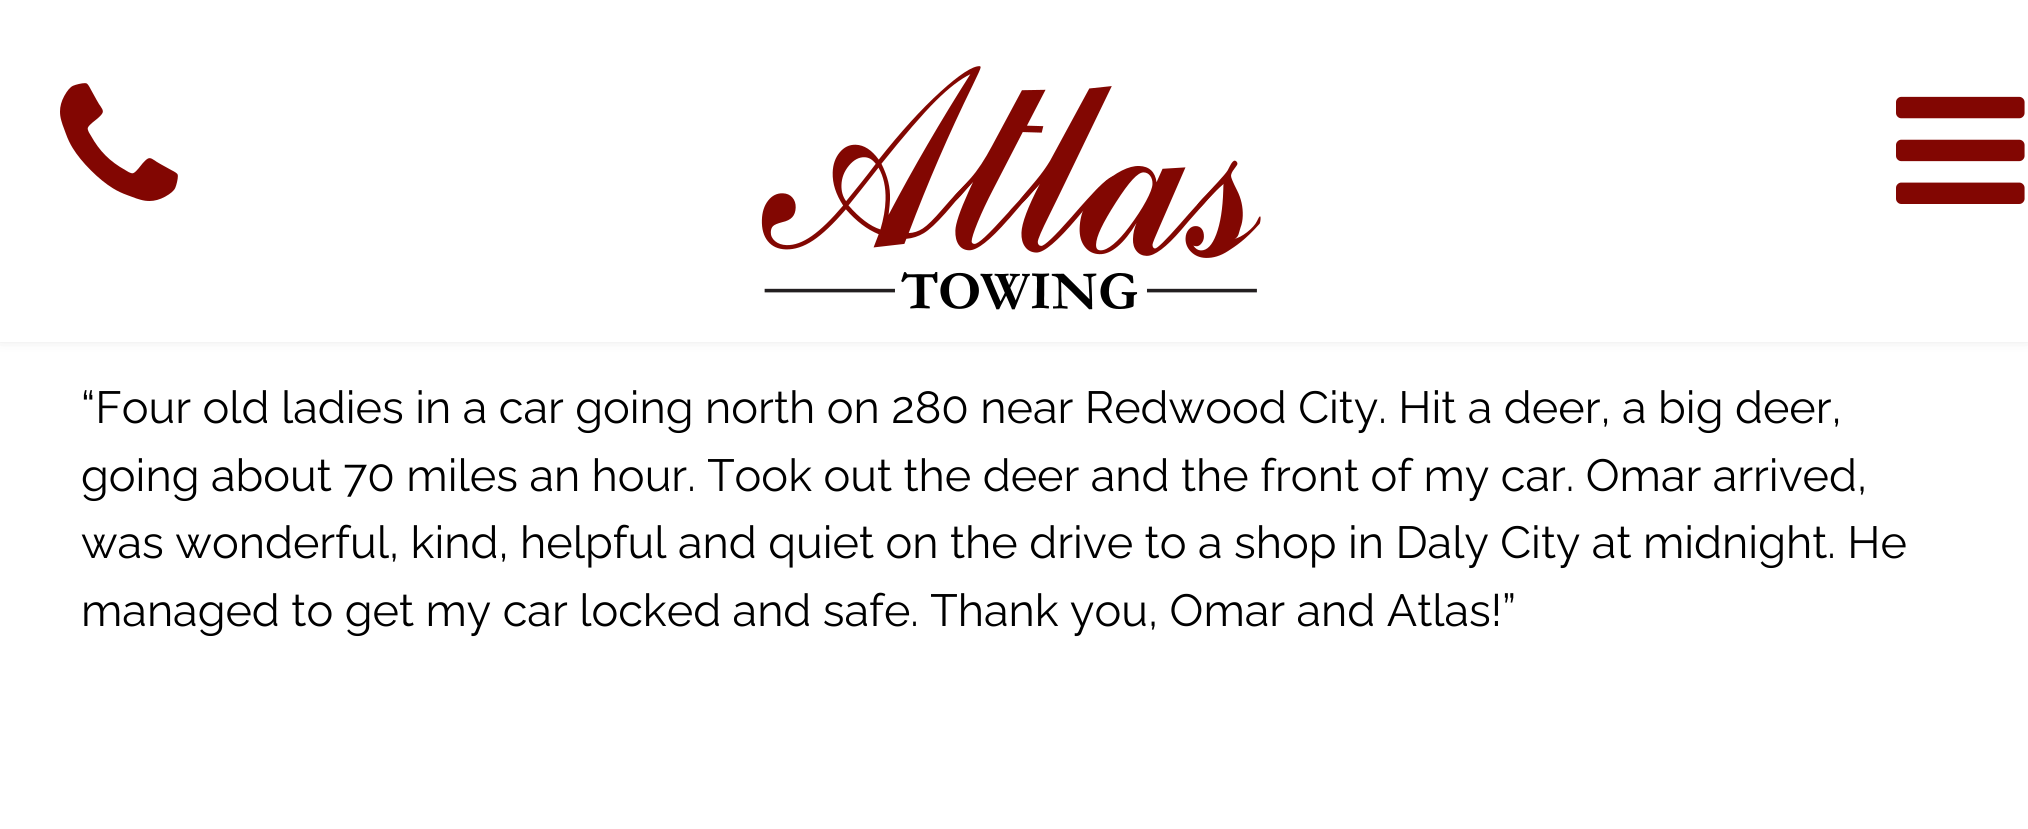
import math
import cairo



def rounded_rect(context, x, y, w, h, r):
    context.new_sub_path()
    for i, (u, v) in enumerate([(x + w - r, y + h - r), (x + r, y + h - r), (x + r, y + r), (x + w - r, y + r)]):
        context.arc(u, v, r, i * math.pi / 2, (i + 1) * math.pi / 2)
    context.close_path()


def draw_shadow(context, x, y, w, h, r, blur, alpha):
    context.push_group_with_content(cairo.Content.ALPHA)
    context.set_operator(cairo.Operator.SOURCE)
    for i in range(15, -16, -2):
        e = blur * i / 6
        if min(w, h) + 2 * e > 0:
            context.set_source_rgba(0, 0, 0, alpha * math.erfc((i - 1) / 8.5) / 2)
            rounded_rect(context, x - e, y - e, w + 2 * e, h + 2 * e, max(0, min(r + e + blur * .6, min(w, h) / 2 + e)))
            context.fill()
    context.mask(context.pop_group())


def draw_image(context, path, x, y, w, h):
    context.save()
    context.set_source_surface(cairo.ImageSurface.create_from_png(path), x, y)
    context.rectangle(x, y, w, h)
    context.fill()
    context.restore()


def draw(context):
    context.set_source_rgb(1, 1, 1)
    context.paint()
    context.set_source_rgb(136 / 255, 136 / 255, 136 / 255)
    draw_shadow(context, 0, -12, 2028, 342, 0, 9, 1)
    context.set_source_rgb(1, 1, 1)
    context.rectangle(0, 0, 2028, 342)
    context.fill()
    draw_image(context, "images/1.png", 60, 83, 118, 118)
    draw_image(context, "images/2.png", 761, 66, 500, 244)
    draw_image(context, "images/3.png", 1896, 96, 129, 108)
    context.select_font_face("Raleway")
    context.set_font_size(45)
    context.set_source_rgb(0, 0, 0)
    context.move_to(81, 423)
    context.show_text("“Four old ladies in a car going north on 280 near Redwood City. Hit a deer, a big deer,")
    context.move_to(81, 491)
    context.show_text("going about 70 miles an hour. Took out the deer and the front of my car. Omar arrived,")
    context.move_to(81, 558)
    context.show_text("was wonderful, kind, helpful and quiet on the drive to a shop in Daly City at midnight. He")
    context.move_to(81, 626)
    context.show_text("managed to get my car locked and safe. Thank you, Omar and Atlas!”")


surface = cairo.ImageSurface(cairo.Format.RGB24, 2028, 829)
context = cairo.Context(surface)
options = cairo.FontOptions()
options.set_hint_metrics(cairo.HintMetrics.OFF)
options.set_hint_style(cairo.HintStyle.NONE)
context.set_font_options(options)
context.set_miter_limit(4)
draw(context)
surface.write_to_png("out.png")
